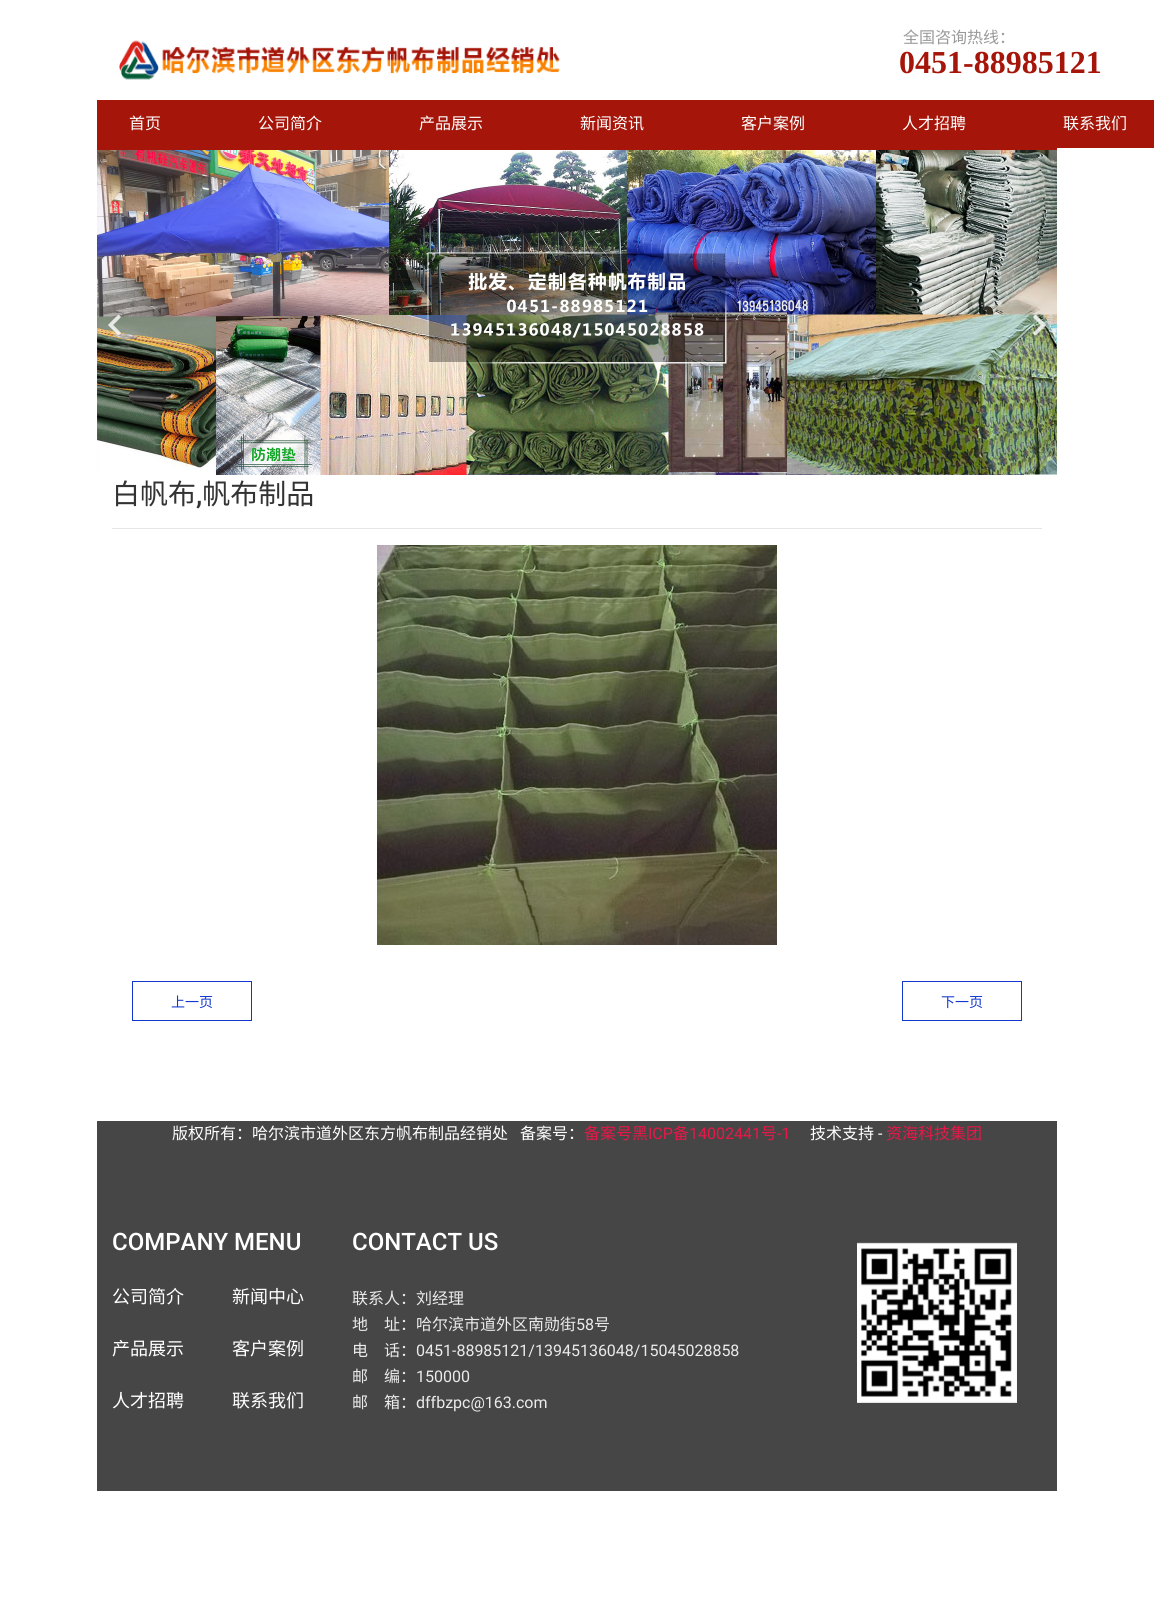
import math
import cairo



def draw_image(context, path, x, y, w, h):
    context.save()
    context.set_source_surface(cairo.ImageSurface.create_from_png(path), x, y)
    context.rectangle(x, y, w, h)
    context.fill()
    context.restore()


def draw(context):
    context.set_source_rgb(1, 1, 1)
    context.paint()
    draw_image(context, "images/1.png", 118, 40, 442, 40)
    context.set_source_rgb(165 / 255, 21 / 255, 9 / 255)
    context.rectangle(97, 100, 960, 50)
    context.fill()
    context.new_path()
    context.move_to(1049, 100)
    context.line_to(1154, 100)
    context.line_to(1154, 148)
    context.line_to(1049, 148)
    context.curve_to(1047.5, 148, 1046, 146.5, 1046, 145)
    context.line_to(1046, 103)
    context.curve_to(1046, 101.5, 1047.5, 100, 1049, 100)
    context.close_path()
    context.fill()
    draw_image(context, "images/2.png", 97, 150, 960, 325)
    draw_image(context, "images/3.png", 108, 314, 13, 22)
    draw_image(context, "images/4.png", 1033, 314, 13, 22)
    context.set_source_rgb(230 / 255, 230 / 255, 230 / 255)
    context.rectangle(112, 528, 930, 1)
    context.fill()
    draw_image(context, "images/5.png", 377, 545, 400, 400)
    context.rectangle(132.5, 981.5, 119, 39)
    context.set_source_rgb(18 / 255, 55 / 255, 206 / 255)
    context.set_line_width(1)
    context.stroke()
    context.rectangle(902.5, 981.5, 119, 39)
    context.stroke()
    context.set_source_rgb(70 / 255, 70 / 255, 70 / 255)
    context.rectangle(97, 1121, 960, 370)
    context.fill()
    draw_image(context, "images/6.png", 857, 1242, 160, 161)
    context.select_font_face("Noto Sans CJK SC")
    context.set_font_size(16)
    context.set_source_rgb(153 / 255, 153 / 255, 153 / 255)
    context.move_to(903, 43)
    context.show_text("全国咨询热线：")
    context.select_font_face("Liberation Serif", cairo.FontSlant.NORMAL, cairo.FontWeight.BOLD)
    context.set_font_size(32)
    context.set_source_rgb(165 / 255, 21 / 255, 9 / 255)
    context.move_to(899, 73)
    context.show_text("0451-88985121")
    context.select_font_face("Noto Sans CJK SC")
    context.set_font_size(16)
    context.set_source_rgb(1, 1, 1)
    context.move_to(129, 129)
    context.show_text("首页")
    context.move_to(258, 129)
    context.show_text("公司简介")
    context.move_to(419, 129)
    context.show_text("产品展示")
    context.move_to(580, 129)
    context.show_text("新闻资讯")
    context.move_to(741, 129)
    context.show_text("客户案例")
    context.move_to(902, 129)
    context.show_text("人才招聘")
    context.move_to(1063, 129)
    context.show_text("联系我们")
    context.set_font_size(28)
    context.set_source_rgb(51 / 255, 51 / 255, 51 / 255)
    context.move_to(112, 504)
    context.show_text("白帆布 帆布制品")
    context.select_font_face("Roboto Medium")
    context.move_to(196, 504)
    context.show_text(",")
    context.select_font_face("Noto Sans CJK SC")
    context.set_font_size(14)
    context.set_source_rgb(18 / 255, 55 / 255, 206 / 255)
    context.move_to(171, 1007)
    context.show_text("上一页")
    context.move_to(941, 1007)
    context.show_text("下一页")
    context.set_font_size(16)
    context.set_source_rgb(1, 1, 1)
    context.move_to(172, 1139)
    context.show_text("版权所有：哈尔滨市道外区东方帆布制品经销处")
    context.move_to(520, 1139)
    context.show_text("备案号：")
    context.set_source_rgb(232 / 255, 23 / 255, 72 / 255)
    context.move_to(584, 1139)
    context.show_text("备案号黑")
    context.select_font_face("Roboto")
    context.move_to(648, 1139)
    context.show_text("ICP")
    context.select_font_face("Noto Sans CJK SC")
    context.move_to(673, 1139)
    context.show_text("备")
    context.select_font_face("Roboto")
    context.move_to(689, 1139)
    context.show_text("14002441")
    context.select_font_face("Noto Sans CJK SC")
    context.move_to(761, 1139)
    context.show_text("号")
    context.select_font_face("Roboto")
    context.move_to(777, 1139)
    context.show_text("-1")
    context.select_font_face("Noto Sans CJK SC")
    context.set_source_rgb(1, 1, 1)
    context.move_to(810, 1139)
    context.show_text("技术支持")
    context.select_font_face("Roboto")
    context.move_to(878, 1139)
    context.show_text("-")
    context.select_font_face("Noto Sans CJK SC")
    context.set_source_rgb(232 / 255, 23 / 255, 72 / 255)
    context.move_to(886, 1139)
    context.show_text("资海科技集团")
    context.select_font_face("Roboto Medium")
    context.set_font_size(24)
    context.set_source_rgb(1, 1, 1)
    context.move_to(112, 1250)
    context.show_text("COMPANY MENU")
    context.select_font_face("Noto Sans CJK SC")
    context.set_font_size(18)
    context.move_to(112, 1303)
    context.show_text("公司简介")
    context.move_to(232, 1303)
    context.show_text("新闻中心")
    context.move_to(112, 1355)
    context.show_text("产品展示")
    context.move_to(232, 1355)
    context.show_text("客户案例")
    context.move_to(112, 1407)
    context.show_text("人才招聘")
    context.move_to(232, 1407)
    context.show_text("联系我们")
    context.select_font_face("Roboto Medium")
    context.set_font_size(24)
    context.move_to(352, 1250)
    context.show_text("CONTACT US")
    context.select_font_face("Noto Sans CJK SC")
    context.set_font_size(16)
    context.set_source_rgb(235 / 255, 235 / 255, 235 / 255)
    context.move_to(352, 1304)
    context.show_text("联系人：刘经理")
    context.move_to(352, 1330)
    context.show_text("地　址：哈尔滨市道外区南勋街")
    context.select_font_face("Roboto")
    context.move_to(576, 1330)
    context.show_text("58")
    context.select_font_face("Noto Sans CJK SC")
    context.move_to(594, 1330)
    context.show_text("号")
    context.move_to(352, 1356)
    context.show_text("电　话：")
    context.select_font_face("Roboto")
    context.move_to(416, 1356)
    context.show_text("0451-88985121/13945136048/15045028858")
    context.select_font_face("Noto Sans CJK SC")
    context.move_to(352, 1382)
    context.show_text("邮　编：")
    context.select_font_face("Roboto")
    context.move_to(416, 1382)
    context.show_text("150000")
    context.select_font_face("Noto Sans CJK SC")
    context.move_to(352, 1408)
    context.show_text("邮　箱：")
    context.select_font_face("Roboto")
    context.move_to(416, 1408)
    context.show_text("dffbzpc@163.com")


surface = cairo.ImageSurface(cairo.Format.RGB24, 1154, 1604)
context = cairo.Context(surface)
options = cairo.FontOptions()
options.set_hint_metrics(cairo.HintMetrics.OFF)
options.set_hint_style(cairo.HintStyle.NONE)
context.set_font_options(options)
context.set_miter_limit(4)
draw(context)
surface.write_to_png("out.png")
